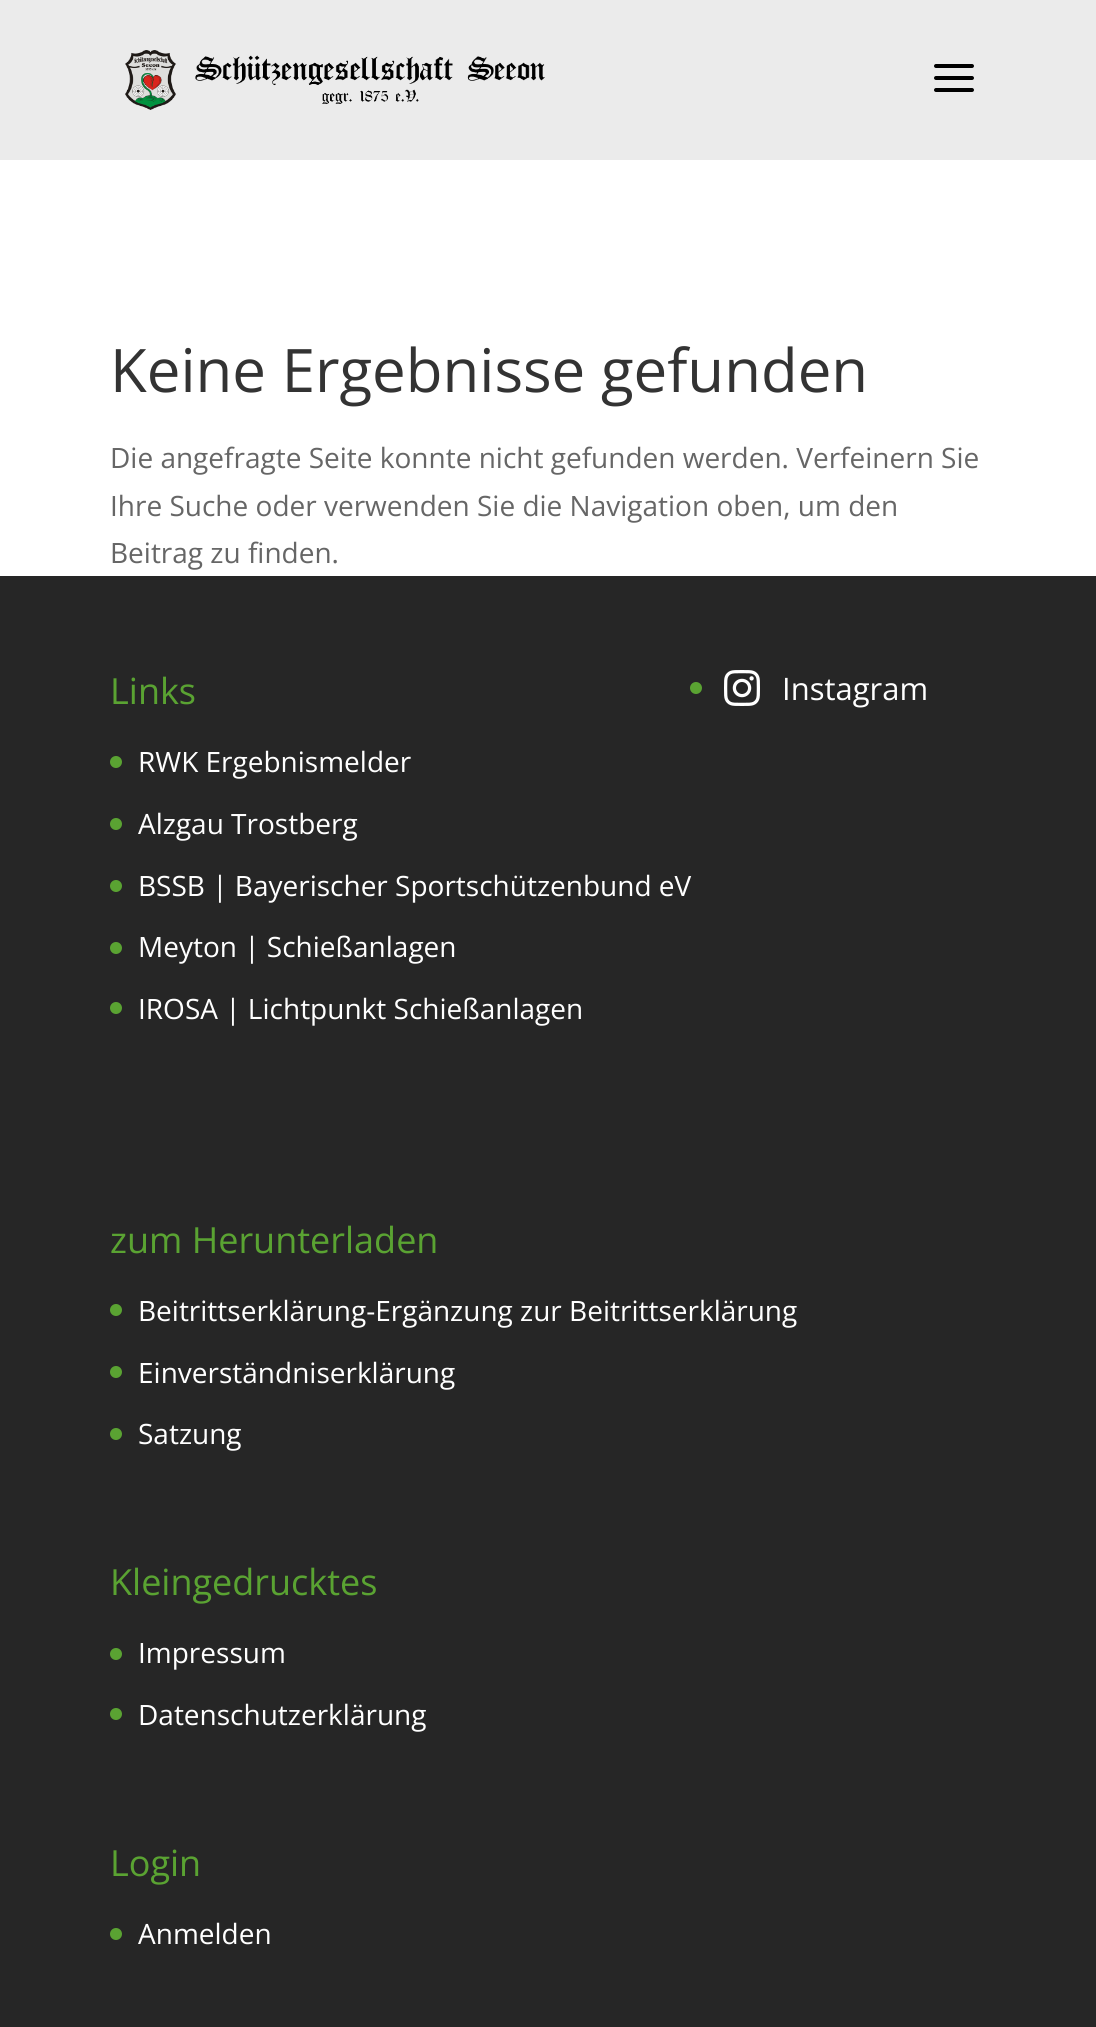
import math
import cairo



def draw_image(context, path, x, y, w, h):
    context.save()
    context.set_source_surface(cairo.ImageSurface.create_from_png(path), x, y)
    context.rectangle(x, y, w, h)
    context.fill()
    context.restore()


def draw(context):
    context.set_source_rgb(1, 1, 1)
    context.paint()
    context.set_source_rgb(235 / 255, 235 / 255, 235 / 255)
    context.rectangle(0, 0, 1096, 160)
    context.fill()
    draw_image(context, "images/1.png", 125, 50, 420, 60)
    draw_image(context, "images/2.png", 934, 64, 40, 28)
    context.set_source_rgb(38 / 255, 38 / 255, 38 / 255)
    context.rectangle(0, 576, 1096, 1451)
    context.fill()
    context.set_source_rgb(90 / 255, 163 / 255, 50 / 255)
    context.arc(116, 762, 6, 0, 2 * math.pi)
    context.fill()
    context.arc(116, 824, 6, 0, 2 * math.pi)
    context.fill()
    context.arc(116, 886, 6, 0, 2 * math.pi)
    context.fill()
    context.arc(116, 948, 6, 0, 2 * math.pi)
    context.fill()
    context.arc(116, 1008, 6, 0, 2 * math.pi)
    context.fill()
    context.arc(696, 688, 6, 0, 2 * math.pi)
    context.fill()
    draw_image(context, "images/3.png", 724, 670, 36, 36)
    context.arc(116, 1310, 6, 0, 2 * math.pi)
    context.fill()
    context.arc(116, 1372, 6, 0, 2 * math.pi)
    context.fill()
    context.arc(116, 1434, 6, 0, 2 * math.pi)
    context.fill()
    context.arc(116, 1654, 6, 0, 2 * math.pi)
    context.fill()
    context.arc(116, 1714, 6, 0, 2 * math.pi)
    context.fill()
    context.arc(116, 1934, 6, 0, 2 * math.pi)
    context.fill()
    context.select_font_face("Open Sans")
    context.set_font_size(60)
    context.set_source_rgb(51 / 255, 51 / 255, 51 / 255)
    context.move_to(110, 392)
    context.show_text("Keine Ergebnisse gefunden")
    context.set_font_size(28)
    context.set_source_rgb(102 / 255, 102 / 255, 102 / 255)
    context.move_to(110, 468)
    context.show_text("Die angefragte Seite konnte nicht gefunden werden. Verfeinern Sie")
    context.move_to(110, 516)
    context.show_text("Ihre Suche oder verwenden Sie die Navigation oben, um den")
    context.move_to(110, 563)
    context.show_text("Beitrag zu finden.")
    context.set_font_size(36)
    context.set_source_rgb(90 / 255, 163 / 255, 50 / 255)
    context.move_to(110, 704)
    context.show_text("Links")
    context.set_font_size(28)
    context.set_source_rgb(1, 1, 1)
    context.move_to(138, 772)
    context.show_text("RWK Ergebnismelder")
    context.move_to(138, 834)
    context.show_text("Alzgau Trostberg")
    context.move_to(138, 896)
    context.show_text("BSSB | Bayerischer Sportschützenbund eV")
    context.move_to(138, 957)
    context.show_text("Meyton | Schießanlagen")
    context.move_to(138, 1019)
    context.show_text("IROSA | Lichtpunkt Schießanlagen")
    context.set_font_size(31)
    context.move_to(782, 700)
    context.show_text("Instagram")
    context.set_font_size(36)
    context.set_source_rgb(90 / 255, 163 / 255, 50 / 255)
    context.move_to(110, 1253)
    context.show_text("zum Herunterladen")
    context.set_font_size(28)
    context.set_source_rgb(1, 1, 1)
    context.move_to(138, 1321)
    context.show_text("Beitrittserklärung-Ergänzung zur Beitrittserklärung")
    context.move_to(138, 1383)
    context.show_text("Einverständniserklärung")
    context.move_to(138, 1444)
    context.show_text("Satzung")
    context.set_font_size(36)
    context.set_source_rgb(90 / 255, 163 / 255, 50 / 255)
    context.move_to(110, 1595)
    context.show_text("Kleingedrucktes")
    context.set_font_size(28)
    context.set_source_rgb(1, 1, 1)
    context.move_to(138, 1663)
    context.show_text("Impressum")
    context.move_to(138, 1725)
    context.show_text("Datenschutzerklärung")
    context.set_font_size(36)
    context.set_source_rgb(90 / 255, 163 / 255, 50 / 255)
    context.move_to(110, 1876)
    context.show_text("Login")
    context.set_font_size(28)
    context.set_source_rgb(1, 1, 1)
    context.move_to(138, 1944)
    context.show_text("Anmelden")


surface = cairo.ImageSurface(cairo.Format.RGB24, 1096, 2027)
context = cairo.Context(surface)
options = cairo.FontOptions()
options.set_hint_metrics(cairo.HintMetrics.OFF)
options.set_hint_style(cairo.HintStyle.NONE)
context.set_font_options(options)
context.set_miter_limit(4)
draw(context)
surface.write_to_png("out.png")
